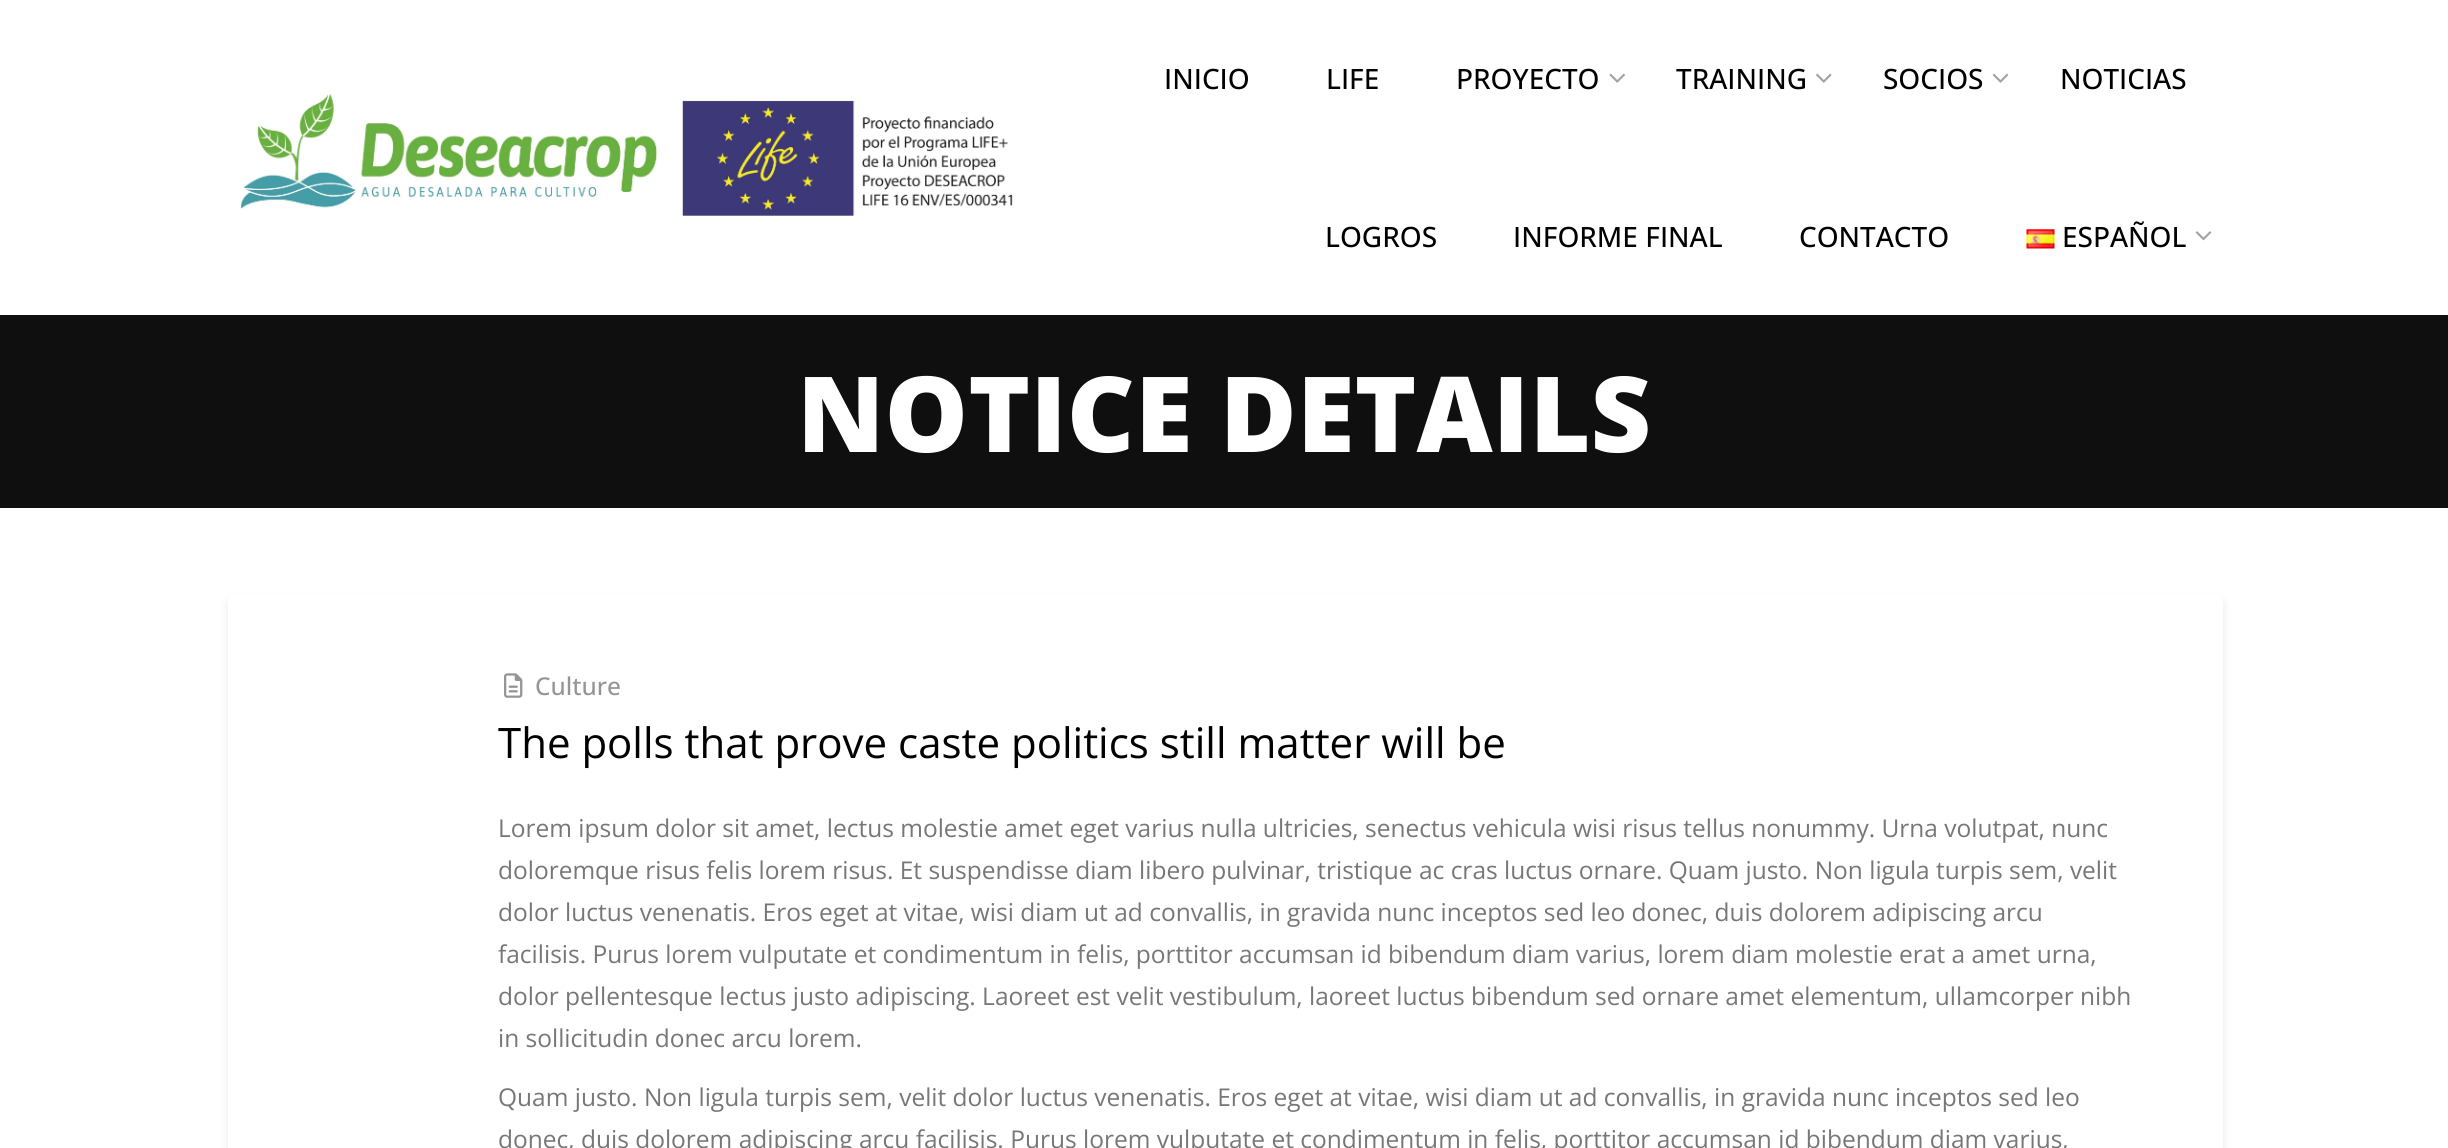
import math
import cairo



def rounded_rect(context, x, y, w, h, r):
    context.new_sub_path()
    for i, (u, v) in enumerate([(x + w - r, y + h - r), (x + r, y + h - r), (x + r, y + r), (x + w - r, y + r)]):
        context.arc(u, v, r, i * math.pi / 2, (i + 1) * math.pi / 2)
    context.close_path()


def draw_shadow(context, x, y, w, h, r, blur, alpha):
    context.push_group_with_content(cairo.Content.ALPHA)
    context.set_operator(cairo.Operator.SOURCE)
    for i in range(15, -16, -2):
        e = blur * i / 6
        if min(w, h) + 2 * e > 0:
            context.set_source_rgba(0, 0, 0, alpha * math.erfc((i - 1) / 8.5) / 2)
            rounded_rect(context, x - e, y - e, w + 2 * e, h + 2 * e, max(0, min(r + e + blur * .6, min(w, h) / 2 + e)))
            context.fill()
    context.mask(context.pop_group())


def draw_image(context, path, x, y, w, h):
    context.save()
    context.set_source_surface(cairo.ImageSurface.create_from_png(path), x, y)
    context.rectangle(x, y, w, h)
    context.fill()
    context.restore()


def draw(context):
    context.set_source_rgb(1, 1, 1)
    context.paint()
    draw_image(context, "images/1.png", 240, 94, 773, 122)
    draw_image(context, "images/2.png", 1609, 73, 16, 10)
    draw_image(context, "images/3.png", 1816, 73, 16, 10)
    draw_image(context, "images/4.png", 1992, 73, 17, 10)
    draw_image(context, "images/5.png", 2026, 229, 29, 20)
    draw_image(context, "images/6.png", 2195, 231, 17, 10)
    context.set_source_rgb(15 / 255, 15 / 255, 15 / 255)
    context.rectangle(0, 315, 2448, 193)
    context.fill()
    context.set_source_rgb(0, 0, 0)
    draw_shadow(context, 228, 600, 1995, 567, 5, 4.5, 0.1)
    context.set_source_rgb(1, 1, 1)
    rounded_rect(context, 228, 595, 1995, 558, 5)
    context.fill()
    draw_image(context, "images/7.png", 504, 673, 19, 25)
    context.select_font_face("Open Sans Medium")
    context.set_font_size(28)
    context.set_source_rgb(0, 0, 0)
    context.move_to(1164, 89)
    context.show_text("INICIO")
    context.move_to(1326, 89)
    context.show_text("LIFE")
    context.move_to(1456, 89)
    context.show_text("PROYECTO")
    context.move_to(1676, 89)
    context.show_text("TRAINING")
    context.move_to(1883, 89)
    context.show_text("SOCIOS")
    context.move_to(2060, 89)
    context.show_text("NOTICIAS")
    context.move_to(1325, 247)
    context.show_text("LOGROS")
    context.move_to(1513, 247)
    context.show_text("INFORME FINAL")
    context.move_to(1799, 247)
    context.show_text("CONTACTO")
    context.move_to(2062, 247)
    context.show_text("ESPAÑOL")
    context.select_font_face("Open Sans ExtraBold")
    context.set_font_size(105)
    context.set_source_rgb(1, 1, 1)
    context.move_to(797, 452)
    context.show_text("NOTICE DETAILS")
    context.select_font_face("Open Sans Medium")
    context.set_font_size(24.5)
    context.set_source_rgb(149 / 255, 149 / 255, 149 / 255)
    context.move_to(535, 695)
    context.show_text("Culture")
    context.select_font_face("Open Sans")
    context.set_font_size(42)
    context.set_source_rgb(0, 0, 0)
    context.move_to(498, 758)
    context.show_text("The polls that prove caste politics still matter will be")
    context.set_font_size(24.5)
    context.set_source_rgb(119 / 255, 119 / 255, 119 / 255)
    context.move_to(498, 837)
    context.show_text("Lorem ipsum dolor sit amet, lectus molestie amet eget varius nulla ultricies, senectus vehicula wisi risus tellus nonummy. Urna volutpat, nunc")
    context.move_to(498, 879)
    context.show_text("doloremque risus felis lorem risus. Et suspendisse diam libero pulvinar, tristique ac cras luctus ornare. Quam justo. Non ligula turpis sem, velit")
    context.move_to(498, 921)
    context.show_text("dolor luctus venenatis. Eros eget at vitae, wisi diam ut ad convallis, in gravida nunc inceptos sed leo donec, duis dolorem adipiscing arcu")
    context.move_to(498, 963)
    context.show_text("facilisis. Purus lorem vulputate et condimentum in felis, porttitor accumsan id bibendum diam varius, lorem diam molestie erat a amet urna,")
    context.move_to(498, 1005)
    context.show_text("dolor pellentesque lectus justo adipiscing. Laoreet est velit vestibulum, laoreet luctus bibendum sed ornare amet elementum, ullamcorper nibh")
    context.move_to(498, 1047)
    context.show_text("in sollicitudin donec arcu lorem.")
    context.move_to(498, 1106)
    context.show_text("Quam justo. Non ligula turpis sem, velit dolor luctus venenatis. Eros eget at vitae, wisi diam ut ad convallis, in gravida nunc inceptos sed leo")
    context.move_to(498, 1148)
    context.show_text("donec, duis dolorem adipiscing arcu facilisis. Purus lorem vulputate et condimentum in felis, porttitor accumsan id bibendum diam varius,")


surface = cairo.ImageSurface(cairo.Format.RGB24, 2448, 1148)
context = cairo.Context(surface)
options = cairo.FontOptions()
options.set_hint_metrics(cairo.HintMetrics.OFF)
options.set_hint_style(cairo.HintStyle.NONE)
context.set_font_options(options)
context.set_miter_limit(4)
draw(context)
surface.write_to_png("out.png")
